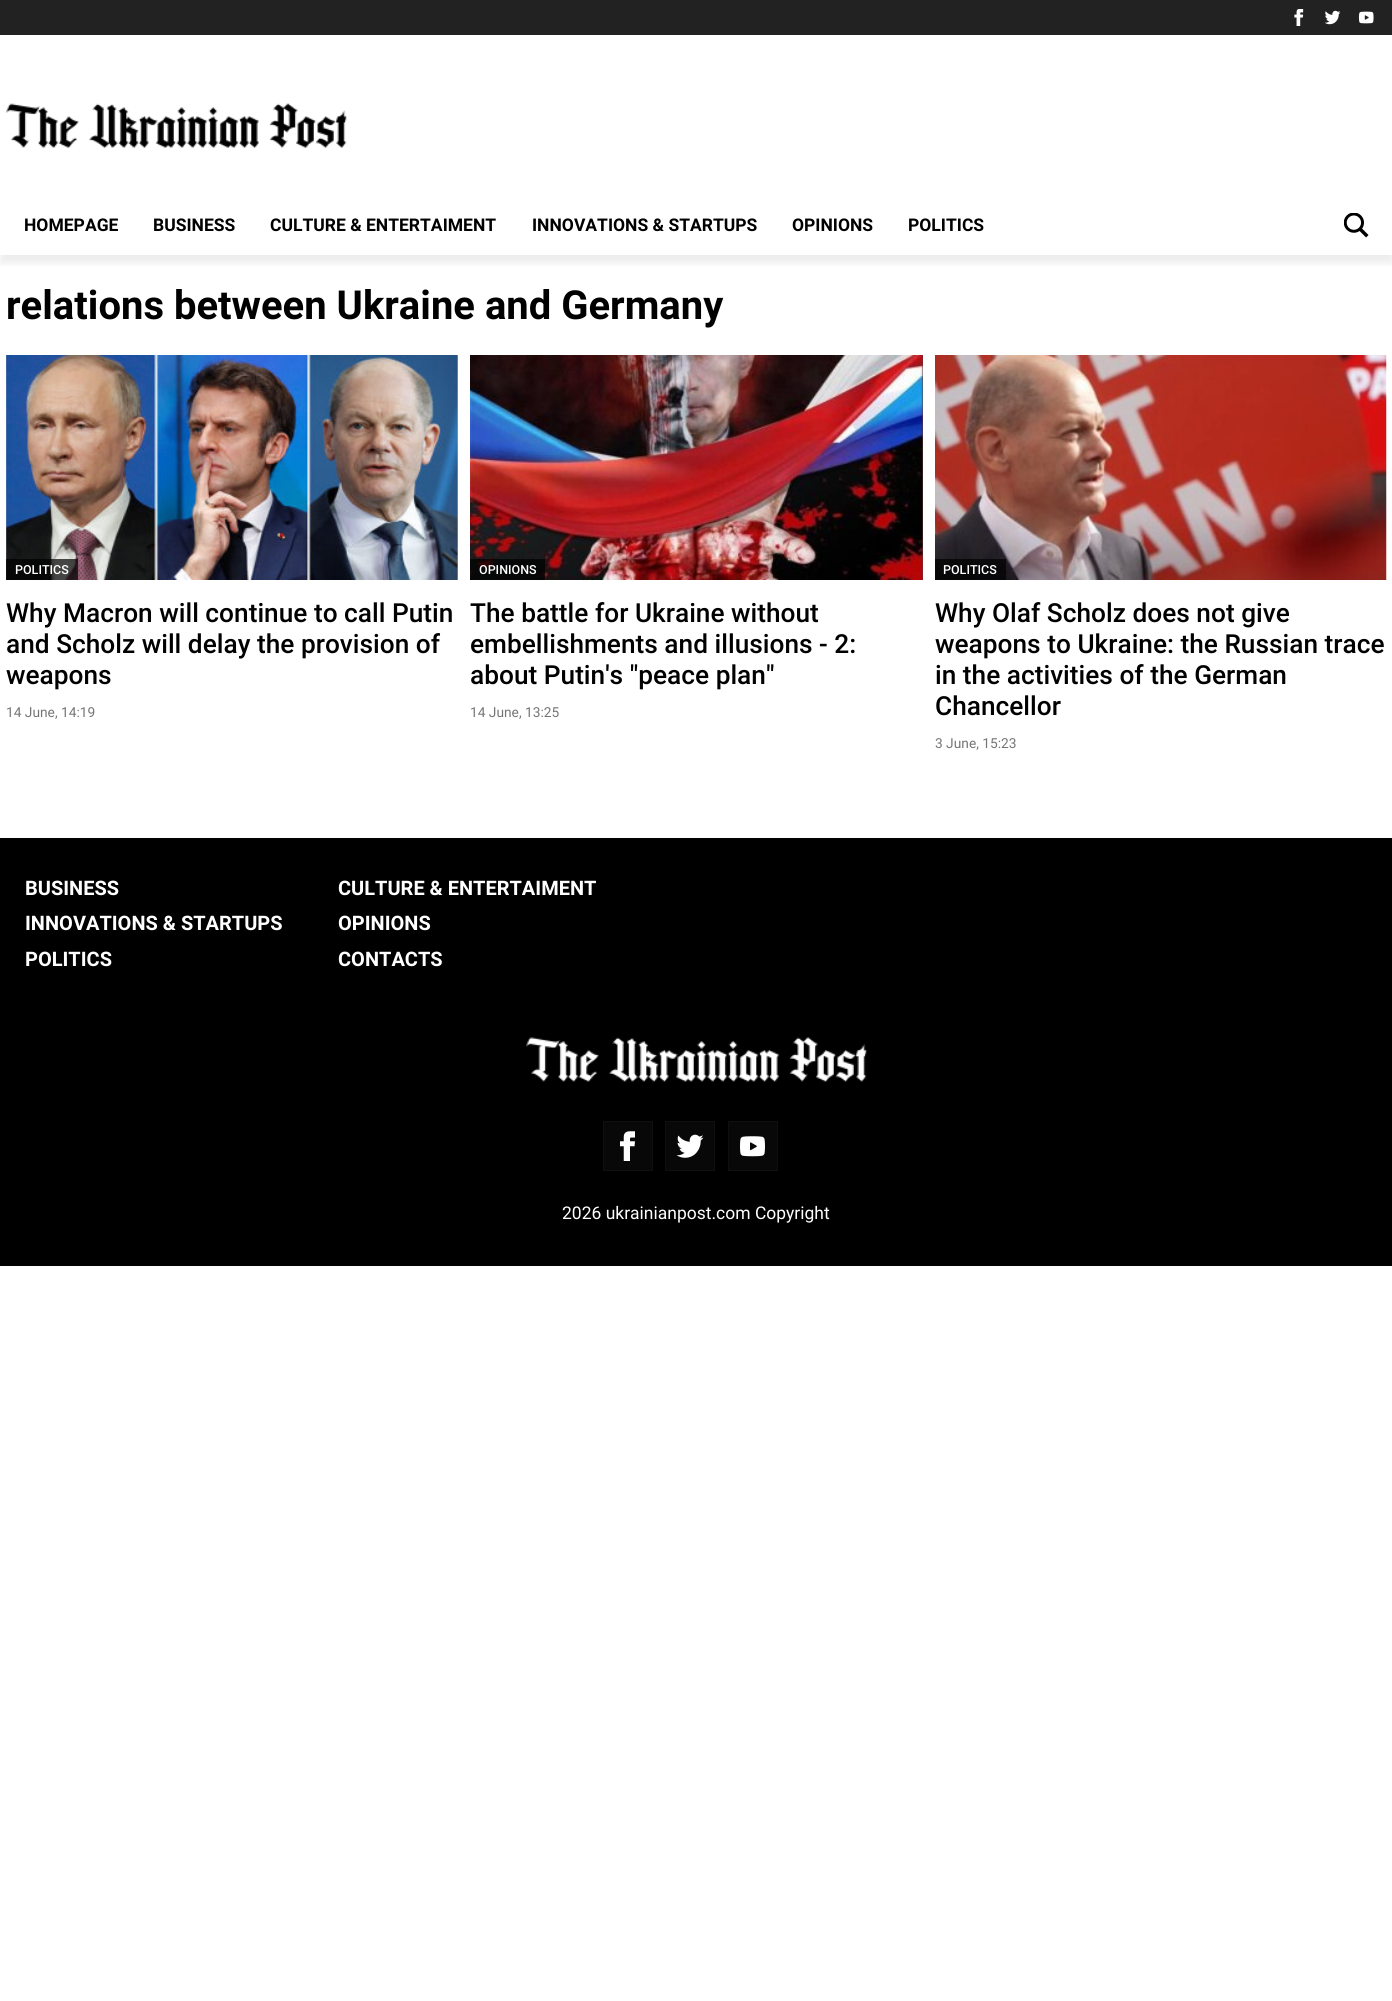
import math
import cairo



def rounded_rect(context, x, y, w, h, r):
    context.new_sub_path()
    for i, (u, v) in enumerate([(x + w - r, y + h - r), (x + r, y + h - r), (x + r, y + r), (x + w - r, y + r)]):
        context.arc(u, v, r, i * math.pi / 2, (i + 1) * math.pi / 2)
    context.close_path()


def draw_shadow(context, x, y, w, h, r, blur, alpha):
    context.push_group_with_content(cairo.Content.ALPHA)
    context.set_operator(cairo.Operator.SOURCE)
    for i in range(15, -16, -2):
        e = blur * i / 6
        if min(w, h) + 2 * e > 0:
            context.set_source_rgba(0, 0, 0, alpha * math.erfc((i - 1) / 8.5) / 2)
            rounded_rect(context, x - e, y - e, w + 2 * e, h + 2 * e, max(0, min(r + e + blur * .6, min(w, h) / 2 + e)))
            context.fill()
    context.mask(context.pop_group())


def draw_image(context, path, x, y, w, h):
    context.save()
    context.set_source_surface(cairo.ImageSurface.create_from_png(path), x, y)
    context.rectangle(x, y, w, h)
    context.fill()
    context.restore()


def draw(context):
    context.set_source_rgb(1, 1, 1)
    context.paint()
    context.save()
    context.rectangle(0, 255, 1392, 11)
    context.clip()
    context.set_source_rgb(0, 0, 0)
    draw_shadow(context, 0, 8, 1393, 255, 0, 5, 0.08)
    context.restore()
    context.set_source_rgb(34 / 255, 34 / 255, 34 / 255)
    context.rectangle(0, 0, 1392, 35)
    context.fill()
    draw_image(context, "images/1.png", 1294, 9, 10, 17)
    draw_image(context, "images/2.png", 1324, 10, 17, 15)
    draw_image(context, "images/3.png", 1358, 11, 16, 13)
    draw_image(context, "images/4.png", 6, 103, 341, 45)
    draw_image(context, "images/5.png", 1344, 213, 25, 25)
    context.set_source_rgb(167 / 255, 171 / 255, 182 / 255)
    context.rectangle(6, 355, 452, 225)
    context.fill()
    draw_image(context, "images/6.png", 6, 355, 452, 225)
    context.set_source_rgba(0, 0, 0, 0.7)
    context.rectangle(6, 559, 72, 21)
    context.fill()
    context.set_source_rgb(100 / 255, 51 / 255, 57 / 255)
    context.rectangle(922, 355, 1, 225)
    context.fill()
    draw_image(context, "images/7.png", 470, 355, 453, 225)
    context.set_source_rgba(0, 0, 0, 0.7)
    context.rectangle(470, 559, 75, 21)
    context.fill()
    draw_image(context, "images/8.png", 935, 355, 452, 225)
    context.rectangle(935, 559, 71, 21)
    context.fill()
    context.set_source_rgb(0, 0, 0)
    context.rectangle(0, 838, 1392, 428)
    context.fill()
    draw_image(context, "images/9.png", 526, 1037, 341, 45)
    context.set_source_rgb(8 / 255, 8 / 255, 8 / 255)
    context.rectangle(603.5, 1121.5, 49, 49)
    context.fill_preserve()
    context.set_source_rgb(15 / 255, 15 / 255, 15 / 255)
    context.set_line_width(1)
    context.stroke()
    draw_image(context, "images/10.png", 620, 1131, 15, 30)
    context.set_source_rgb(8 / 255, 8 / 255, 8 / 255)
    context.rectangle(665.5, 1121.5, 49, 49)
    context.fill_preserve()
    context.set_source_rgb(15 / 255, 15 / 255, 15 / 255)
    context.stroke()
    draw_image(context, "images/11.png", 676, 1134, 28, 24)
    context.set_source_rgb(8 / 255, 8 / 255, 8 / 255)
    context.rectangle(728.5, 1121.5, 49, 49)
    context.fill_preserve()
    context.set_source_rgb(15 / 255, 15 / 255, 15 / 255)
    context.stroke()
    draw_image(context, "images/12.png", 740, 1136, 25, 21)
    context.select_font_face("Roboto", cairo.FontSlant.NORMAL, cairo.FontWeight.BOLD)
    context.set_font_size(17.5)
    context.set_source_rgb(0, 0, 0)
    context.move_to(24, 231)
    context.show_text("HOMEPAGE")
    context.move_to(153, 231)
    context.show_text("BUSINESS")
    context.move_to(270, 231)
    context.show_text("CULTURE & ENTERTAIMENT")
    context.move_to(532, 231)
    context.show_text("INNOVATIONS & STARTUPS")
    context.move_to(792, 231)
    context.show_text("OPINIONS")
    context.move_to(908, 231)
    context.show_text("POLITICS")
    context.set_font_size(40)
    context.move_to(6, 319)
    context.show_text("relations between Ukraine and Germany")
    context.select_font_face("Roboto Medium")
    context.set_font_size(12.5)
    context.set_source_rgb(1, 1, 1)
    context.move_to(15, 574)
    context.show_text("POLITICS")
    context.set_font_size(26.25)
    context.set_source_rgb(0, 0, 0)
    context.move_to(6, 622)
    context.show_text("Why Macron will continue to call Putin")
    context.move_to(6, 653)
    context.show_text("and Scholz will delay the provision of")
    context.move_to(6, 684)
    context.show_text("weapons")
    context.select_font_face("Roboto")
    context.set_font_size(13.75)
    context.set_source_rgb(117 / 255, 117 / 255, 117 / 255)
    context.move_to(6, 717)
    context.show_text("14 June, 14:19")
    context.select_font_face("Roboto Medium")
    context.set_font_size(12.5)
    context.set_source_rgb(1, 1, 1)
    context.move_to(479, 574)
    context.show_text("OPINIONS")
    context.set_font_size(26.25)
    context.set_source_rgb(0, 0, 0)
    context.move_to(470, 622)
    context.show_text("The battle for Ukraine without")
    context.move_to(470, 653)
    context.show_text("embellishments and illusions - 2:")
    context.move_to(470, 684)
    context.show_text("about Putin's \"peace plan\"")
    context.select_font_face("Roboto")
    context.set_font_size(13.75)
    context.set_source_rgb(117 / 255, 117 / 255, 117 / 255)
    context.move_to(470, 717)
    context.show_text("14 June, 13:25")
    context.select_font_face("Roboto Medium")
    context.set_font_size(12.5)
    context.set_source_rgb(1, 1, 1)
    context.move_to(943, 574)
    context.show_text("POLITICS")
    context.set_font_size(26.25)
    context.set_source_rgb(0, 0, 0)
    context.move_to(935, 622)
    context.show_text("Why Olaf Scholz does not give")
    context.move_to(935, 653)
    context.show_text("weapons to Ukraine: the Russian trace")
    context.move_to(935, 684)
    context.show_text("in the activities of the German")
    context.move_to(935, 715)
    context.show_text("Chancellor")
    context.select_font_face("Roboto")
    context.set_font_size(13.75)
    context.set_source_rgb(117 / 255, 117 / 255, 117 / 255)
    context.move_to(935, 748)
    context.show_text("3 June, 15:23")
    context.select_font_face("Roboto", cairo.FontSlant.NORMAL, cairo.FontWeight.BOLD)
    context.set_font_size(20)
    context.set_source_rgb(1, 1, 1)
    context.move_to(25, 895)
    context.show_text("BUSINESS")
    context.move_to(338, 895)
    context.show_text("CULTURE & ENTERTAIMENT")
    context.move_to(25, 930)
    context.show_text("INNOVATIONS & STARTUPS")
    context.move_to(338, 930)
    context.show_text("OPINIONS")
    context.move_to(25, 966)
    context.show_text("POLITICS")
    context.move_to(338, 966)
    context.show_text("CONTACTS")
    context.select_font_face("Roboto")
    context.set_font_size(17.5)
    context.move_to(562, 1219)
    context.show_text("2026 ukrainianpost.com Copyright")


surface = cairo.ImageSurface(cairo.Format.RGB24, 1392, 2001)
context = cairo.Context(surface)
options = cairo.FontOptions()
options.set_hint_metrics(cairo.HintMetrics.OFF)
options.set_hint_style(cairo.HintStyle.NONE)
context.set_font_options(options)
context.set_miter_limit(4)
draw(context)
surface.write_to_png("out.png")
